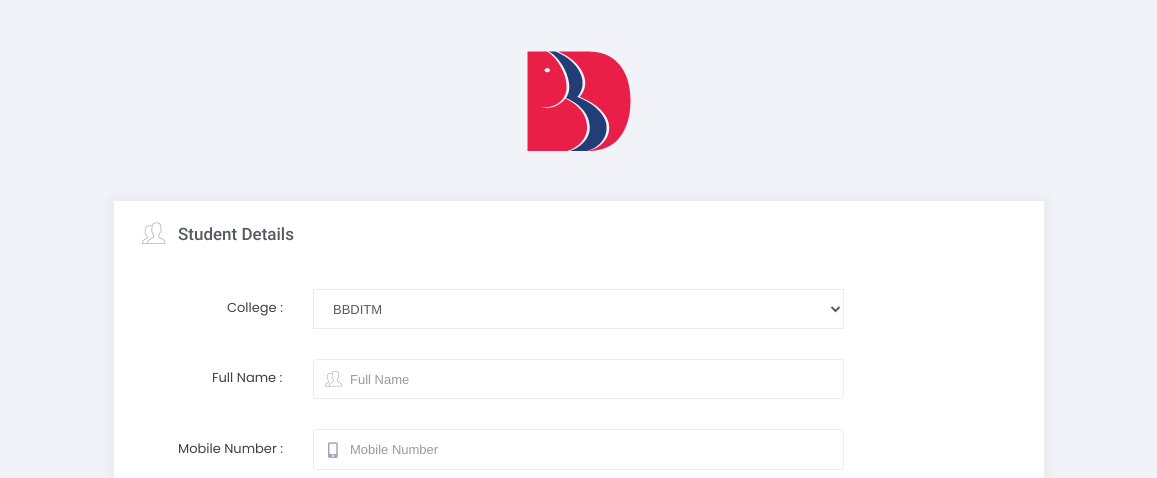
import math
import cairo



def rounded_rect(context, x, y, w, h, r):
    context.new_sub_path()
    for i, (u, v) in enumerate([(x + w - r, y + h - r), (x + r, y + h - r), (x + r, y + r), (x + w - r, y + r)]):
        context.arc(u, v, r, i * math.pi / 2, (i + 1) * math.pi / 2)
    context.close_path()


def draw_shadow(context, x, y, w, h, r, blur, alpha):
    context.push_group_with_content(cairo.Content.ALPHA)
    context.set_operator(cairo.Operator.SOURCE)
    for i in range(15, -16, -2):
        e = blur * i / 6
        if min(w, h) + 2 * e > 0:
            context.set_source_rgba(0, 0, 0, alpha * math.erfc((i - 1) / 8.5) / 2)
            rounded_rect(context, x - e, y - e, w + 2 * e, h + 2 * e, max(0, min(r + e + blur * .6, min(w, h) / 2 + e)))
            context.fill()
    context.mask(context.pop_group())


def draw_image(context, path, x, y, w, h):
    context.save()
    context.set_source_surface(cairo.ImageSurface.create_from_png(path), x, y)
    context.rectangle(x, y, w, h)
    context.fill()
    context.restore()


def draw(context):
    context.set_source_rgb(242 / 255, 243 / 255, 248 / 255)
    context.paint()
    draw_image(context, "images/1.png", 527, 51, 104, 100)
    context.set_source_rgb(69 / 255, 65 / 255, 78 / 255)
    draw_shadow(context, 113, 201, 932, 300, 0, 7.5, 0.08)
    context.set_source_rgb(1, 1, 1)
    context.rectangle(114, 201, 930, 277)
    context.fill()
    draw_image(context, "images/2.png", 142, 222, 24, 22)
    context.rectangle(313.5, 289.5, 530, 39)
    context.set_source_rgb(235 / 255, 237 / 255, 242 / 255)
    context.set_line_width(1)
    context.stroke()
    context.new_path()
    context.move_to(831.5, 307)
    context.line_to(835.5, 311)
    context.line_to(839.5, 307)
    context.set_source_rgb(87 / 255, 89 / 255, 98 / 255)
    context.set_line_width(2)
    context.stroke()
    rounded_rect(context, 313.5, 359.5, 530, 39, 2.5)
    context.set_source_rgb(235 / 255, 237 / 255, 242 / 255)
    context.set_line_width(1)
    context.stroke()
    draw_image(context, "images/3.png", 325, 370, 17, 17)
    rounded_rect(context, 313.5, 429.5, 530, 40, 2.5)
    context.stroke()
    draw_image(context, "images/4.png", 328, 442, 10, 16)
    context.select_font_face("Roboto Medium")
    context.set_font_size(17)
    context.set_source_rgb(87 / 255, 89 / 255, 98 / 255)
    context.move_to(178, 240)
    context.show_text("Student Details")
    context.select_font_face("Poppins")
    context.set_font_size(13)
    context.set_source_rgb(63 / 255, 64 / 255, 71 / 255)
    context.move_to(227, 312)
    context.show_text("College :")
    context.select_font_face("Liberation Sans")
    context.set_source_rgb(87 / 255, 89 / 255, 98 / 255)
    context.move_to(333, 314)
    context.show_text("BBDITM")
    context.select_font_face("Poppins")
    context.set_source_rgb(63 / 255, 64 / 255, 71 / 255)
    context.move_to(212, 382)
    context.show_text("Full Name :")
    context.select_font_face("Liberation Sans")
    context.set_source_rgb(150 / 255, 153 / 255, 162 / 255)
    context.move_to(350, 384)
    context.show_text("Full Name")
    context.select_font_face("Poppins")
    context.set_source_rgb(63 / 255, 64 / 255, 71 / 255)
    context.move_to(178, 453)
    context.show_text("Mobile Number :")
    context.select_font_face("Liberation Sans")
    context.set_source_rgb(150 / 255, 153 / 255, 162 / 255)
    context.move_to(350, 454)
    context.show_text("Mobile Number")


surface = cairo.ImageSurface(cairo.Format.RGB24, 1157, 478)
context = cairo.Context(surface)
options = cairo.FontOptions()
options.set_hint_metrics(cairo.HintMetrics.OFF)
options.set_hint_style(cairo.HintStyle.NONE)
context.set_font_options(options)
context.set_miter_limit(4)
draw(context)
surface.write_to_png("out.png")
